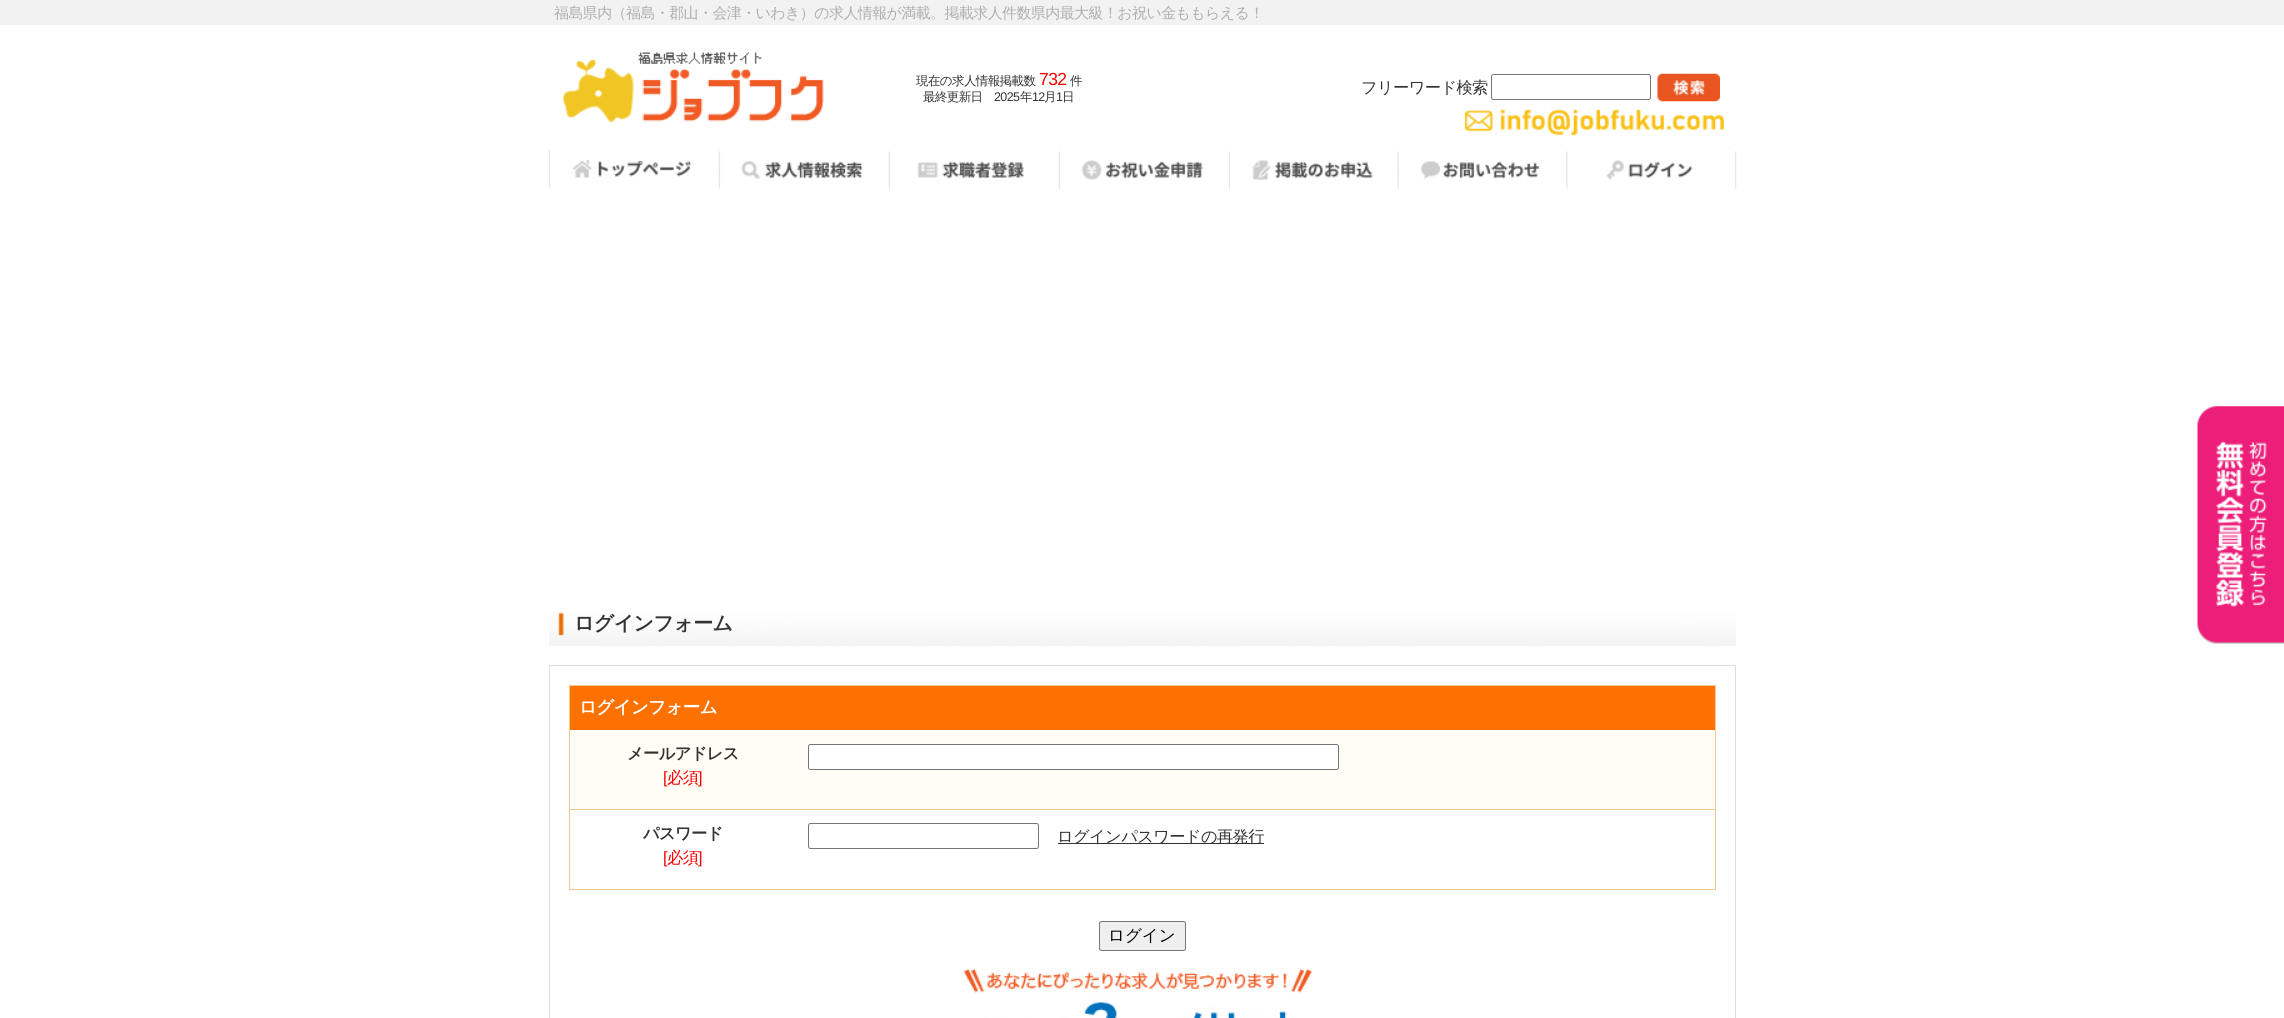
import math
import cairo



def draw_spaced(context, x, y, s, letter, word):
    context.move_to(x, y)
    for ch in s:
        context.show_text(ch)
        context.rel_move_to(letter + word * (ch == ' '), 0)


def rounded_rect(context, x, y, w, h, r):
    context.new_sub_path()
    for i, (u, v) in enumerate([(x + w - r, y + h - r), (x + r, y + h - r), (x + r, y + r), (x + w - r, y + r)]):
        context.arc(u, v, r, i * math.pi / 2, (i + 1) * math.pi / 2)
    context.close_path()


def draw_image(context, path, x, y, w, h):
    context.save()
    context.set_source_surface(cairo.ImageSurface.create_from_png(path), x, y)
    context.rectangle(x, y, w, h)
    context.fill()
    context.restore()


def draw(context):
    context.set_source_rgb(1, 1, 1)
    context.paint()
    context.set_source_rgb(242 / 255, 242 / 255, 242 / 255)
    context.rectangle(0, 0, 2284, 25)
    context.fill()
    draw_image(context, "images/1.png", 562, 52, 262, 71)
    rounded_rect(context, 1491.5, 74.5, 159, 25, 2)
    context.set_source_rgb(118 / 255, 118 / 255, 118 / 255)
    context.set_line_width(1)
    context.stroke()
    draw_image(context, "images/2.png", 1657, 73, 63, 29)
    draw_image(context, "images/3.png", 1464, 109, 260, 27)
    draw_image(context, "images/4.png", 548, 150, 144, 38)
    draw_image(context, "images/5.png", 718, 151, 145, 38)
    draw_image(context, "images/6.png", 888, 151, 136, 38)
    draw_image(context, "images/7.png", 1058, 151, 145, 38)
    draw_image(context, "images/8.png", 1228, 151, 145, 38)
    draw_image(context, "images/9.png", 1397, 151, 143, 38)
    draw_image(context, "images/10.png", 1566, 151, 171, 38)
    draw_image(context, "images/11.png", 549, 612, 1187, 34)
    context.rectangle(549.5, 665.5, 1186, 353)
    context.set_source_rgb(221 / 255, 221 / 255, 221 / 255)
    context.stroke()
    context.set_source_rgb(235 / 255, 203 / 255, 147 / 255)
    context.rectangle(569, 685, 1147, 1)
    context.fill()
    context.rectangle(1715, 685, 1, 205)
    context.fill()
    context.rectangle(569, 889, 1147, 1)
    context.fill()
    context.rectangle(569, 685, 1, 205)
    context.fill()
    context.set_source_rgb(253 / 255, 113 / 255, 0)
    context.rectangle(570, 686, 1145, 44)
    context.fill()
    context.set_source_rgb(1, 253 / 255, 244 / 255)
    context.rectangle(570, 730, 1145, 79)
    context.fill()
    context.set_source_rgb(235 / 255, 203 / 255, 147 / 255)
    context.rectangle(569, 809, 1147, 1)
    context.fill()
    context.set_source_rgb(1, 1, 1)
    rounded_rect(context, 808.5, 744.5, 530, 25, 2)
    context.fill_preserve()
    context.set_source_rgb(118 / 255, 118 / 255, 118 / 255)
    context.stroke()
    rounded_rect(context, 808.5, 823.5, 230, 25, 2)
    context.stroke()
    context.set_source_rgb(51 / 255, 51 / 255, 51 / 255)
    context.rectangle(1058, 843, 206, 1)
    context.fill()
    context.set_source_rgb(239 / 255, 239 / 255, 239 / 255)
    rounded_rect(context, 1099.5, 921.5, 86, 29, 2)
    context.fill_preserve()
    context.set_source_rgb(118 / 255, 118 / 255, 118 / 255)
    context.stroke()
    draw_image(context, "images/12.png", 963, 968, 350, 50)
    draw_image(context, "images/13.png", 2197, 406, 87, 238)
    context.select_font_face("WenQuanYi Zen Hei Medium")
    context.set_font_size(15)
    context.set_source_rgb(175 / 255, 175 / 255, 175 / 255)
    draw_spaced(context, 554, 18, "福島県内（福島・郡山・会津・いわき）の求人情報が満載。掲載求人件数県内最大級！お祝い金ももらえる！", -0.6, 0)
    context.set_font_size(12.5)
    context.set_source_rgb(51 / 255, 51 / 255, 51 / 255)
    draw_spaced(context, 916, 85, "現在の求人情報掲載数", -0.6, 0)
    context.select_font_face("Liberation Sans")
    context.set_font_size(17.5)
    context.set_source_rgb(1, 0, 0)
    draw_spaced(context, 1039, 85, "732", -0.6, 0)
    context.select_font_face("WenQuanYi Zen Hei Medium")
    context.set_font_size(12.5)
    context.set_source_rgb(51 / 255, 51 / 255, 51 / 255)
    draw_spaced(context, 1070, 85, "件", -0.6, 0)
    draw_spaced(context, 923, 101, "最終更新日", -0.6, 0)
    context.select_font_face("Liberation Sans")
    draw_spaced(context, 994, 101, "2025", -0.6, 0)
    context.select_font_face("WenQuanYi Zen Hei Medium")
    draw_spaced(context, 1020, 101, "年", -0.6, 0)
    context.select_font_face("Liberation Sans")
    draw_spaced(context, 1032, 101, "12", -0.6, 0)
    context.select_font_face("WenQuanYi Zen Hei Medium")
    draw_spaced(context, 1044, 101, "月", -0.6, 0)
    context.select_font_face("Liberation Sans")
    draw_spaced(context, 1056, 101, "1", -0.6, 0)
    context.select_font_face("WenQuanYi Zen Hei Medium")
    draw_spaced(context, 1062, 101, "日", -0.6, 0)
    context.set_font_size(16.25)
    draw_spaced(context, 1361, 93, "フリーワード検索", -0.6, 0)
    context.select_font_face("WenQuanYi Zen Hei", cairo.FontSlant.NORMAL, cairo.FontWeight.BOLD)
    context.set_font_size(20)
    draw_spaced(context, 574, 630, "ログインフォーム", -0.6, 0)
    context.set_font_size(17.5)
    context.set_source_rgb(1, 1, 1)
    draw_spaced(context, 579, 713, "ログインフォーム", -0.6, 0)
    context.set_font_size(16.25)
    context.set_source_rgb(51 / 255, 51 / 255, 51 / 255)
    draw_spaced(context, 627, 759, "メールアドレス", -0.6, 0)
    context.select_font_face("Liberation Sans")
    context.set_source_rgb(1, 0, 0)
    draw_spaced(context, 663, 783, "[", -0.6, 0)
    context.select_font_face("WenQuanYi Zen Hei Medium")
    draw_spaced(context, 667, 783, "必須", -0.6, 0)
    context.select_font_face("Liberation Sans")
    draw_spaced(context, 698, 783, "]", -0.6, 0)
    context.select_font_face("WenQuanYi Zen Hei", cairo.FontSlant.NORMAL, cairo.FontWeight.BOLD)
    context.set_source_rgb(51 / 255, 51 / 255, 51 / 255)
    draw_spaced(context, 643, 839, "パスワード", -0.6, 0)
    context.select_font_face("Liberation Sans")
    context.set_source_rgb(1, 0, 0)
    draw_spaced(context, 663, 863, "[", -0.6, 0)
    context.select_font_face("WenQuanYi Zen Hei Medium")
    draw_spaced(context, 667, 863, "必須", -0.6, 0)
    context.select_font_face("Liberation Sans")
    draw_spaced(context, 698, 863, "]", -0.6, 0)
    context.select_font_face("WenQuanYi Zen Hei Medium")
    context.set_source_rgb(51 / 255, 51 / 255, 51 / 255)
    draw_spaced(context, 1057, 842, "ログインパスワードの再発行", -0.6, 0)
    context.set_font_size(16.5)
    context.set_source_rgb(0, 0, 0)
    context.move_to(1108, 941)
    context.show_text("ログイン")


surface = cairo.ImageSurface(cairo.Format.RGB24, 2284, 1018)
context = cairo.Context(surface)
options = cairo.FontOptions()
options.set_hint_metrics(cairo.HintMetrics.OFF)
options.set_hint_style(cairo.HintStyle.NONE)
context.set_font_options(options)
context.set_miter_limit(4)
draw(context)
surface.write_to_png("out.png")
